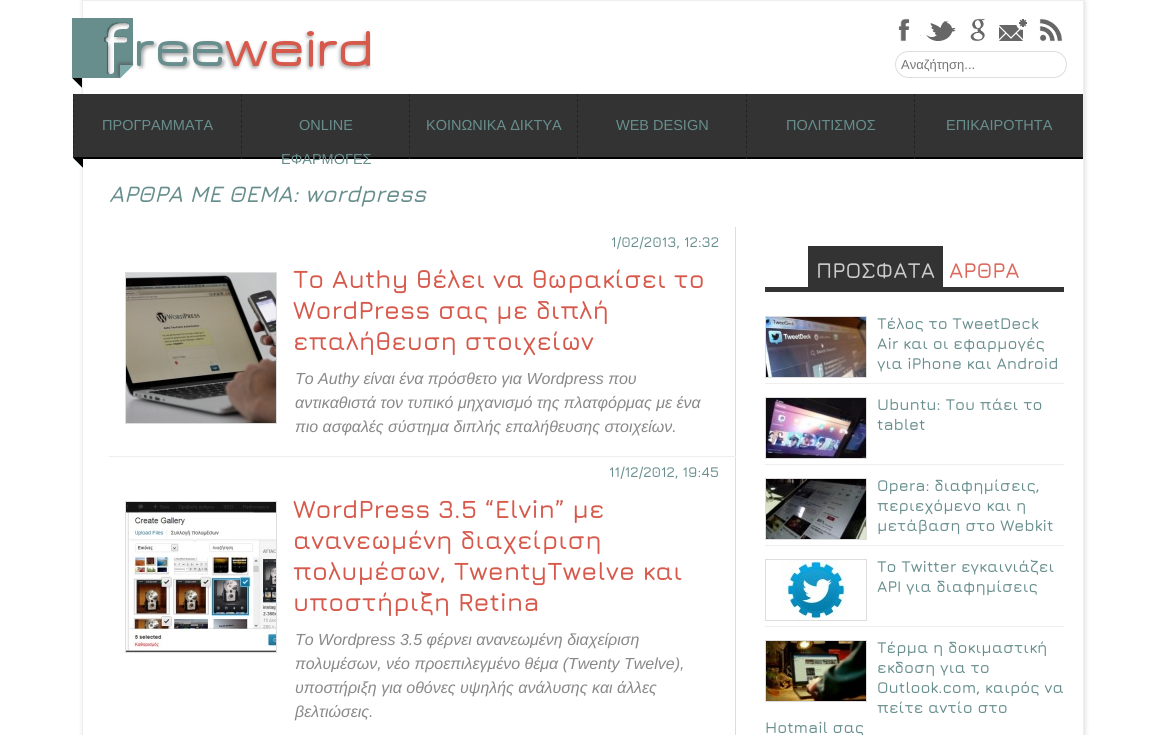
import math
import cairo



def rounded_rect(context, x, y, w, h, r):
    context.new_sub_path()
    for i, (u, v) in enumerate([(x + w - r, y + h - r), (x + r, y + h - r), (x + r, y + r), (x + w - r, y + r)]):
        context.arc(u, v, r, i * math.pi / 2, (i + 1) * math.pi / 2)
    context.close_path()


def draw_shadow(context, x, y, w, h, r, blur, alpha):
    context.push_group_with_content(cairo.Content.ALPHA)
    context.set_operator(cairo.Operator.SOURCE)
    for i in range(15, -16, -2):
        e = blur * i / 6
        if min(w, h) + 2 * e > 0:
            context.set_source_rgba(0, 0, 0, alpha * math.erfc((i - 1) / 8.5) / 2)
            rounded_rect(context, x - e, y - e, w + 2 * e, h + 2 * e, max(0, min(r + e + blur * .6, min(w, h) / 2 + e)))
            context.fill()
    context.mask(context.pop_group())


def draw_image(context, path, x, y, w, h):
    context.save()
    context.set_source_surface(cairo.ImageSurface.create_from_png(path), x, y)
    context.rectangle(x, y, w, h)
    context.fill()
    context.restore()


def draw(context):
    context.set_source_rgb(1, 1, 1)
    context.paint()
    context.save()
    context.set_fill_rule(cairo.FillRule.EVEN_ODD)
    context.new_path()
    context.move_to(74, 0)
    context.line_to(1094, 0)
    context.line_to(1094, 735)
    context.line_to(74, 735)
    context.close_path()
    context.move_to(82, 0)
    context.line_to(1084, 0)
    context.line_to(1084, 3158)
    context.line_to(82, 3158)
    context.close_path()
    context.clip()
    context.set_source_rgb(221 / 255, 221 / 255, 221 / 255)
    draw_shadow(context, 83, 1, 1002, 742, 0, 2.5, 1)
    context.restore()
    context.rectangle(82.5, 0.5, 1001, 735)
    context.set_source_rgb(238 / 255, 238 / 255, 238 / 255)
    context.set_line_width(1)
    context.stroke()
    draw_image(context, "images/1.png", 72, 18, 299, 60)
    draw_image(context, "images/2.png", 72, 78, 10, 10)
    draw_image(context, "images/3.png", 898, 18, 23, 24)
    draw_image(context, "images/4.png", 926, 21, 30, 20)
    draw_image(context, "images/5.png", 970, 18, 15, 24)
    draw_image(context, "images/6.png", 999, 19, 28, 22)
    draw_image(context, "images/7.png", 1039, 18, 24, 24)
    rounded_rect(context, 895.5, 51.5, 171, 26, 13)
    context.set_source_rgb(221 / 255, 221 / 255, 221 / 255)
    context.stroke()
    context.set_source_rgb(0, 0, 0)
    context.rectangle(73, 157, 1010, 2)
    context.fill()
    context.set_source_rgb(51 / 255, 51 / 255, 51 / 255)
    context.rectangle(73, 94, 1010, 63)
    context.fill()
    context.new_path()
    context.move_to(73.5, 94)
    context.line_to(73.5, 159)
    context.set_source_rgb(34 / 255, 34 / 255, 34 / 255)
    context.set_dash([3, 2.17])
    context.stroke()
    draw_image(context, "images/2.png", 73, 158, 10, 10)
    context.new_path()
    context.move_to(241.5, 94)
    context.line_to(241.5, 159)
    context.stroke()
    context.new_path()
    context.move_to(409.5, 94)
    context.line_to(409.5, 159)
    context.stroke()
    context.new_path()
    context.move_to(577.5, 94)
    context.line_to(577.5, 159)
    context.stroke()
    context.new_path()
    context.move_to(746.5, 94)
    context.line_to(746.5, 159)
    context.stroke()
    context.new_path()
    context.move_to(914.5, 94)
    context.line_to(914.5, 159)
    context.stroke()
    context.set_source_rgb(221 / 255, 221 / 255, 221 / 255)
    context.rectangle(735, 227, 1, 508)
    context.fill()
    context.set_source_rgb(238 / 255, 238 / 255, 238 / 255)
    context.rectangle(109, 456, 627, 1)
    context.fill()
    context.rectangle(125.5, 272.5, 151, 151)
    context.set_source_rgb(221 / 255, 221 / 255, 221 / 255)
    context.set_dash([])
    context.stroke()
    draw_image(context, "images/8.png", 126, 273, 150, 150)
    context.rectangle(125.5, 501.5, 151, 151)
    context.stroke()
    draw_image(context, "images/9.png", 126, 502, 150, 150)
    context.set_source_rgb(51 / 255, 51 / 255, 51 / 255)
    context.rectangle(765, 287, 299, 5)
    context.fill()
    context.rectangle(808, 246, 135, 41)
    context.fill()
    context.set_source_rgb(238 / 255, 238 / 255, 238 / 255)
    context.rectangle(765, 383, 299, 1)
    context.fill()
    context.rectangle(765.5, 316.5, 101, 61)
    context.set_source_rgb(221 / 255, 221 / 255, 221 / 255)
    context.stroke()
    draw_image(context, "images/10.png", 766, 317, 100, 60)
    context.set_source_rgb(238 / 255, 238 / 255, 238 / 255)
    context.rectangle(765, 464, 299, 1)
    context.fill()
    context.rectangle(765.5, 397.5, 101, 61)
    context.set_source_rgb(221 / 255, 221 / 255, 221 / 255)
    context.stroke()
    draw_image(context, "images/11.png", 766, 398, 100, 60)
    context.set_source_rgb(238 / 255, 238 / 255, 238 / 255)
    context.rectangle(765, 545, 299, 1)
    context.fill()
    context.rectangle(765.5, 478.5, 101, 61)
    context.set_source_rgb(221 / 255, 221 / 255, 221 / 255)
    context.stroke()
    draw_image(context, "images/12.png", 766, 479, 100, 60)
    context.set_source_rgb(238 / 255, 238 / 255, 238 / 255)
    context.rectangle(765, 626, 299, 1)
    context.fill()
    context.rectangle(765.5, 559.5, 101, 61)
    context.set_source_rgb(221 / 255, 221 / 255, 221 / 255)
    context.stroke()
    draw_image(context, "images/13.png", 781, 560, 65, 60)
    context.rectangle(765.5, 640.5, 101, 61)
    context.stroke()
    draw_image(context, "images/14.png", 766, 641, 100, 60)
    context.select_font_face("Liberation Sans")
    context.set_font_size(13)
    context.set_source_rgb(117 / 255, 117 / 255, 117 / 255)
    context.move_to(901, 69)
    context.show_text("Αναζήτηση...")
    context.set_font_size(14.5)
    context.set_source_rgb(103 / 255, 142 / 255, 141 / 255)
    context.move_to(102, 130)
    context.show_text("ΠΡΟΓΡΑΜΜΑΤΑ")
    context.move_to(299, 130)
    context.show_text("ONLINE")
    context.move_to(281, 164)
    context.show_text("ΕΦΑΡΜΟΓΕΣ")
    context.move_to(426, 130)
    context.show_text("ΚΟΙΝΩΝΙΚΑ ΔΙΚΤΥΑ")
    context.move_to(616, 130)
    context.show_text("WEB DESIGN")
    context.move_to(786, 130)
    context.show_text("ΠΟΛΙΤΙΣΜΟΣ")
    context.move_to(946, 130)
    context.show_text("ΕΠΙΚΑΙΡΟΤΗΤΑ")
    context.select_font_face("Jura SemiBold", cairo.FontSlant.ITALIC)
    context.set_font_size(23)
    context.move_to(109, 202)
    context.show_text("ΑΡΘΡΑ ΜΕ ΘΕΜΑ: wordpress")
    context.select_font_face("Jura SemiBold")
    context.set_font_size(14.5)
    context.move_to(611, 247)
    context.show_text("1/02/2013, 12:32")
    context.set_font_size(25.6)
    context.set_source_rgb(214 / 255, 89 / 255, 75 / 255)
    context.move_to(293, 288)
    context.show_text("Το Authy θέλει να θωρακίσει το")
    context.move_to(293, 319)
    context.show_text("WordPress σας με διπλή")
    context.move_to(293, 350)
    context.show_text("επαλήθευση στοιχείων")
    context.select_font_face("Liberation Sans", cairo.FontSlant.ITALIC)
    context.set_font_size(16)
    context.set_source_rgb(136 / 255, 136 / 255, 136 / 255)
    context.move_to(295, 384)
    context.show_text("To Authy είναι ένα πρόσθετο για Wordpress που")
    context.move_to(295, 408)
    context.show_text("αντικαθιστά τον τυπικό μηχανισμό της πλατφόρμας με ένα")
    context.move_to(295, 432)
    context.show_text("πιο ασφαλές σύστημα διπλής επαλήθευσης στοιχείων.")
    context.select_font_face("Jura SemiBold")
    context.set_font_size(14.5)
    context.set_source_rgb(103 / 255, 142 / 255, 141 / 255)
    context.move_to(609, 477)
    context.show_text("11/12/2012, 19:45")
    context.set_font_size(25.6)
    context.set_source_rgb(214 / 255, 89 / 255, 75 / 255)
    context.move_to(293, 518)
    context.show_text("WordPress 3.5 “Elvin” με")
    context.move_to(293, 549)
    context.show_text("ανανεωμένη διαχείριση")
    context.move_to(293, 580)
    context.show_text("πολυμέσων, TwentyTwelve και")
    context.move_to(293, 611)
    context.show_text("υποστήριξη Retina")
    context.select_font_face("Liberation Sans", cairo.FontSlant.ITALIC)
    context.set_font_size(16)
    context.set_source_rgb(136 / 255, 136 / 255, 136 / 255)
    context.move_to(295, 645)
    context.show_text("Το Wordpress 3.5 φέρνει ανανεωμένη διαχείριση")
    context.move_to(295, 669)
    context.show_text("πολυμέσων, νέο προεπιλεγμένο θέμα (Twenty Twelve),")
    context.move_to(295, 693)
    context.show_text("υποστήριξη για οθόνες υψηλής ανάλυσης και άλλες")
    context.move_to(295, 717)
    context.show_text("βελτιώσεις.")
    context.select_font_face("Jura SemiBold")
    context.set_font_size(22)
    context.set_source_rgb(204 / 255, 204 / 255, 204 / 255)
    context.move_to(816, 278)
    context.show_text("ΠΡΟΣΦΑΤΑ")
    context.set_source_rgb(220 / 255, 105 / 255, 93 / 255)
    context.move_to(949, 278)
    context.show_text("ΑΡΘΡΑ")
    context.set_font_size(16)
    context.set_source_rgb(103 / 255, 142 / 255, 141 / 255)
    context.move_to(877, 329)
    context.show_text("Τέλος το TweetDeck")
    context.move_to(877, 349)
    context.show_text("Air και οι εφαρμογές")
    context.move_to(877, 369)
    context.show_text("για iPhone και Android")
    context.move_to(877, 410)
    context.show_text("Ubuntu: Tου πάει το")
    context.move_to(877, 430)
    context.show_text("tablet")
    context.move_to(877, 491)
    context.show_text("Opera: διαφημίσεις,")
    context.move_to(877, 511)
    context.show_text("περιεχόμενο και η")
    context.move_to(877, 531)
    context.show_text("μετάβαση στο Webkit")
    context.move_to(877, 572)
    context.show_text("Το Twitter εγκαινιάζει")
    context.move_to(877, 592)
    context.show_text("API για διαφημίσεις")
    context.move_to(877, 653)
    context.show_text("Τέρμα η δοκιμαστική")
    context.move_to(877, 673)
    context.show_text("εκδοση για το")
    context.move_to(877, 693)
    context.show_text("Outlook.com, καιρός να")
    context.move_to(877, 713)
    context.show_text("πείτε αντίο στο")
    context.move_to(765, 733)
    context.show_text("Hotmail σας")


surface = cairo.ImageSurface(cairo.Format.RGB24, 1165, 735)
context = cairo.Context(surface)
options = cairo.FontOptions()
options.set_hint_metrics(cairo.HintMetrics.OFF)
options.set_hint_style(cairo.HintStyle.NONE)
context.set_font_options(options)
context.set_miter_limit(4)
draw(context)
surface.write_to_png("out.png")
